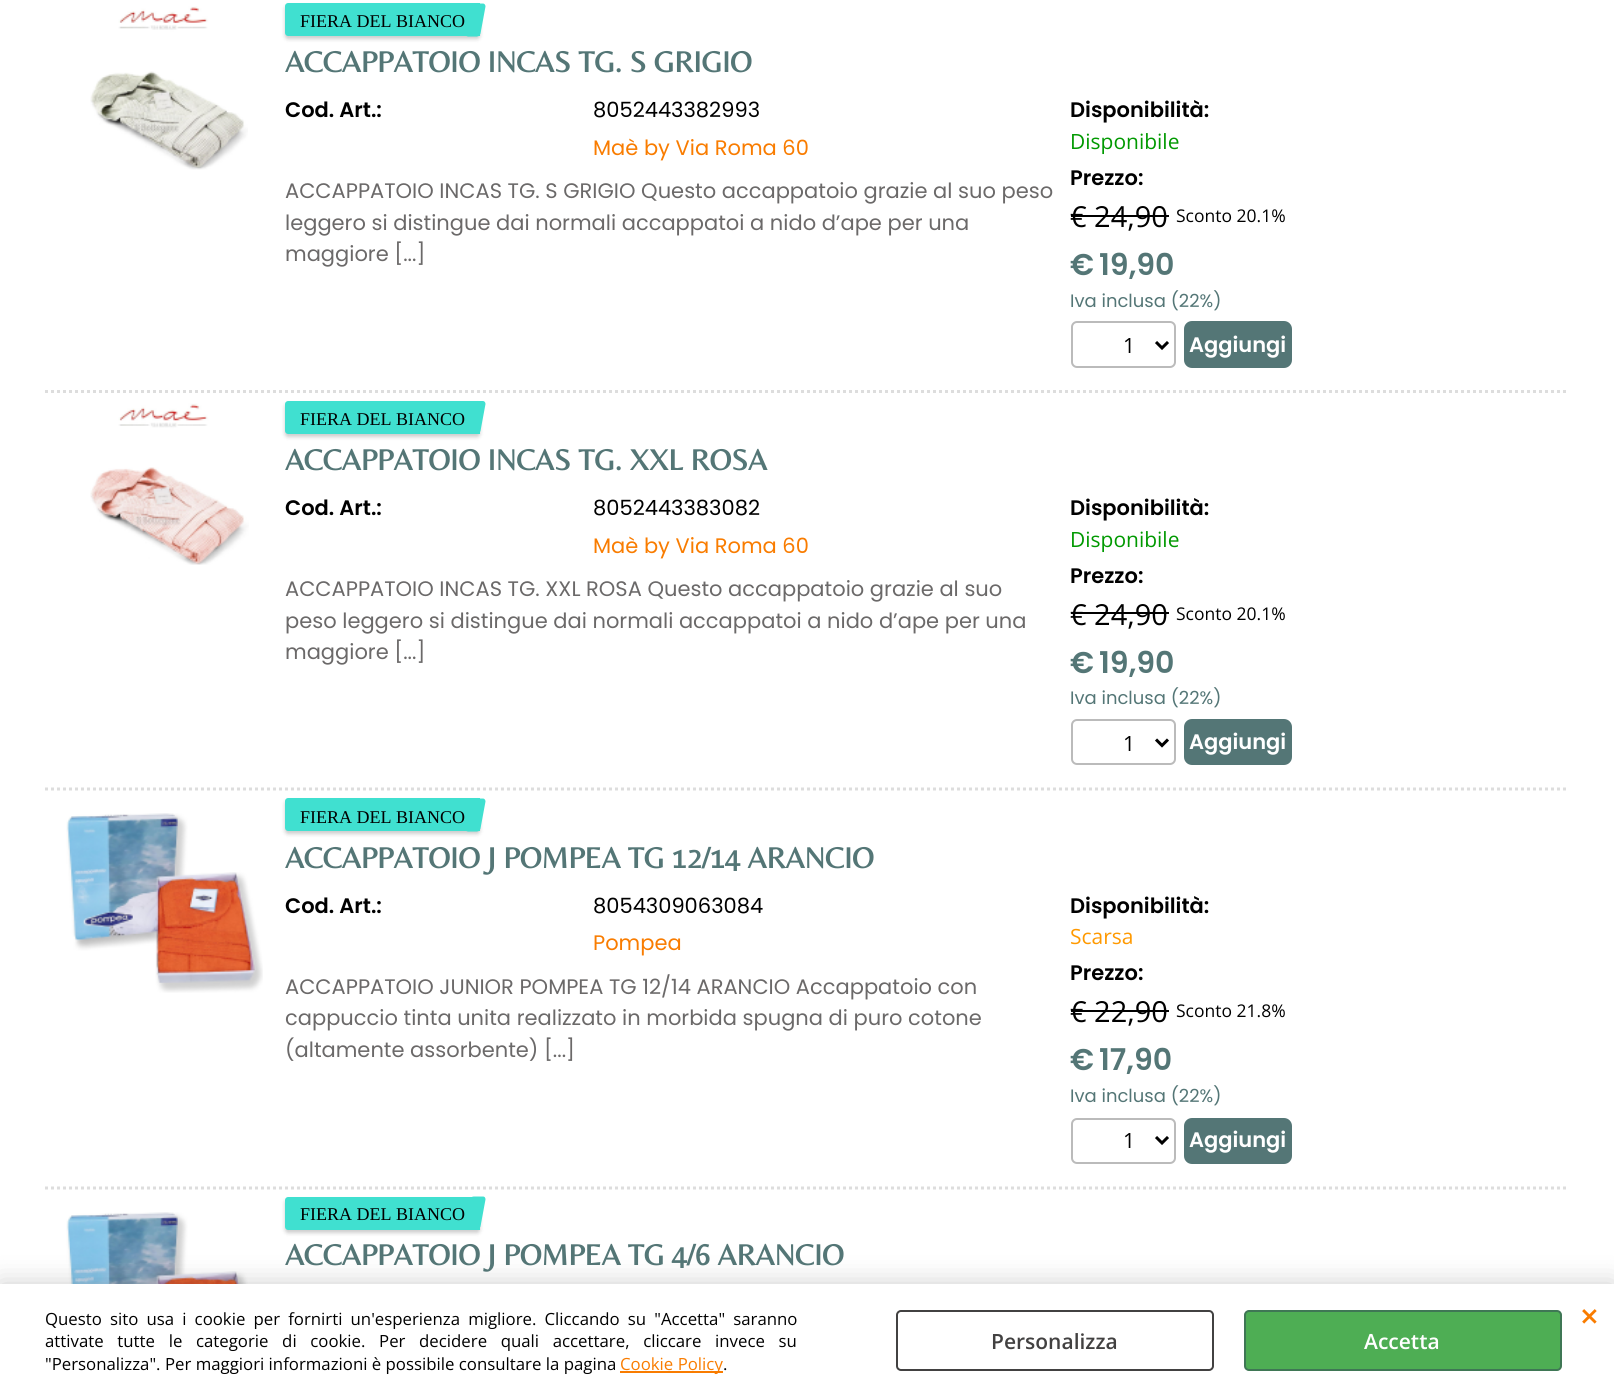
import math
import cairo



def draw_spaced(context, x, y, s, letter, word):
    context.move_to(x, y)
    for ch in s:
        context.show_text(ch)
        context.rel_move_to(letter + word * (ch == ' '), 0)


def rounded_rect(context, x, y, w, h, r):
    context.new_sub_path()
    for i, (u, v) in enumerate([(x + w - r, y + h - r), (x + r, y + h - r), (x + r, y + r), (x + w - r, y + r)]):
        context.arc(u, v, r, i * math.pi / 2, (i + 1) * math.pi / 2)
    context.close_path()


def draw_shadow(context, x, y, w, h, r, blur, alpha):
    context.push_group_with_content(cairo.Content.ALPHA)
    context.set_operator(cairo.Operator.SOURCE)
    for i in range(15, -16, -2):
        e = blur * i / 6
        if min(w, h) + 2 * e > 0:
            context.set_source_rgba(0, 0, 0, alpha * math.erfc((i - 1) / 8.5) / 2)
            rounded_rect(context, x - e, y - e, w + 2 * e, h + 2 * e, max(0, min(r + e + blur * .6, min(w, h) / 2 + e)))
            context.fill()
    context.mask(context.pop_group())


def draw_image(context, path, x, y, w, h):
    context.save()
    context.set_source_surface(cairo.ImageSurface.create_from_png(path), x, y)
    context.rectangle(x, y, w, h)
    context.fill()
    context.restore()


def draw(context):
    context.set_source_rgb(1, 1, 1)
    context.paint()
    context.new_path()
    context.move_to(45, 391.5)
    context.line_to(1569, 391.5)
    context.set_source_rgb(221 / 255, 221 / 255, 221 / 255)
    context.set_line_width(3)
    context.set_dash([3, 3])
    context.stroke()
    draw_image(context, "images/1.png", 90, 6, 158, 164)
    context.set_source_rgb(0, 0, 0)
    draw_shadow(context, 285, 6, 195, 33, 3, 2, 0.2)
    context.set_source_rgb(64 / 255, 224 / 255, 208 / 255)
    context.new_path()
    context.move_to(288, 3)
    context.line_to(480, 3)
    context.line_to(480, 36)
    context.line_to(288, 36)
    context.curve_to(286.5, 36, 285, 34.5, 285, 33)
    context.line_to(285, 6)
    context.curve_to(285, 4.5, 286.5, 3, 288, 3)
    context.close_path()
    context.fill()
    context.new_path()
    context.move_to(474, 3.5)
    context.line_to(483, 3.5)
    context.curve_to(484.5, 3.5, 485.5, 5, 485.5, 6.5)
    context.line_to(480.5, 33.5)
    context.curve_to(480, 35, 478.5, 36.5, 477, 36.5)
    context.line_to(468, 36.5)
    context.curve_to(466.5, 36.5, 465, 35, 465.5, 33.5)
    context.line_to(470.5, 6.5)
    context.curve_to(470.5, 5, 472, 3.5, 474, 3.5)
    context.close_path()
    context.fill()
    context.set_source_rgb(0, 0, 0)
    context.rectangle(1071, 215, 98, 2)
    context.fill()
    rounded_rect(context, 1072, 322, 103, 45, 5)
    context.set_source_rgb(187 / 255, 187 / 255, 187 / 255)
    context.set_line_width(2)
    context.set_dash([])
    context.stroke()
    context.new_path()
    context.move_to(1156, 342)
    context.line_to(1162, 348)
    context.line_to(1168, 342)
    context.set_source_rgb(0, 0, 0)
    context.set_line_width(3)
    context.stroke()
    context.set_source_rgb(84 / 255, 118 / 255, 118 / 255)
    rounded_rect(context, 1184, 321, 108, 47, 8)
    context.fill()
    context.new_path()
    context.move_to(45, 789)
    context.line_to(1569, 789)
    context.set_source_rgb(221 / 255, 221 / 255, 221 / 255)
    context.set_dash([3, 3])
    context.stroke()
    draw_image(context, "images/2.png", 90, 403, 159, 162)
    context.set_source_rgb(0, 0, 0)
    draw_shadow(context, 285, 404, 195, 33, 3, 2, 0.2)
    context.set_source_rgb(64 / 255, 224 / 255, 208 / 255)
    context.new_path()
    context.move_to(288, 401)
    context.line_to(480, 401)
    context.line_to(480, 434)
    context.line_to(288, 434)
    context.curve_to(286.5, 434, 285, 432.5, 285, 431)
    context.line_to(285, 404)
    context.curve_to(285, 402.5, 286.5, 401, 288, 401)
    context.close_path()
    context.fill()
    context.new_path()
    context.move_to(474, 401)
    context.line_to(483, 401)
    context.curve_to(484.5, 401, 485.5, 402.5, 485.5, 404)
    context.line_to(480.5, 431)
    context.curve_to(480, 432.5, 478.5, 434, 477, 434)
    context.line_to(468, 434)
    context.curve_to(466.5, 434, 465, 432.5, 465.5, 431)
    context.line_to(470.5, 404)
    context.curve_to(470.5, 402.5, 472, 401, 474, 401)
    context.close_path()
    context.fill()
    context.set_source_rgb(0, 0, 0)
    context.rectangle(1071, 612, 98, 2)
    context.fill()
    rounded_rect(context, 1072, 720, 103, 44, 5)
    context.set_source_rgb(187 / 255, 187 / 255, 187 / 255)
    context.set_line_width(2)
    context.set_dash([])
    context.stroke()
    context.new_path()
    context.move_to(1156, 739.5)
    context.line_to(1162, 745.5)
    context.line_to(1168, 739.5)
    context.set_source_rgb(0, 0, 0)
    context.set_line_width(3)
    context.stroke()
    context.set_source_rgb(84 / 255, 118 / 255, 118 / 255)
    rounded_rect(context, 1184, 719, 108, 46, 8)
    context.fill()
    context.new_path()
    context.move_to(45, 1188)
    context.line_to(1569, 1188)
    context.set_source_rgb(221 / 255, 221 / 255, 221 / 255)
    context.set_dash([3, 3])
    context.stroke()
    draw_image(context, "images/3.png", 66, 813, 197, 180)
    context.set_source_rgb(0, 0, 0)
    draw_shadow(context, 285, 801, 195, 33, 3, 2, 0.2)
    context.set_source_rgb(64 / 255, 224 / 255, 208 / 255)
    context.new_path()
    context.move_to(288, 798)
    context.line_to(480, 798)
    context.line_to(480, 831)
    context.line_to(288, 831)
    context.curve_to(286.5, 831, 285, 829.5, 285, 828)
    context.line_to(285, 801)
    context.curve_to(285, 799.5, 286.5, 798, 288, 798)
    context.close_path()
    context.fill()
    context.new_path()
    context.move_to(474, 798.5)
    context.line_to(483, 798.5)
    context.curve_to(484.5, 798.5, 485.5, 800, 485.5, 801.5)
    context.line_to(480.5, 828.5)
    context.curve_to(480, 830.5, 478.5, 831.5, 477, 831.5)
    context.line_to(468, 831.5)
    context.curve_to(466.5, 831.5, 465, 830.5, 465.5, 828.5)
    context.line_to(470.5, 801.5)
    context.curve_to(470.5, 800, 472, 798.5, 474, 798.5)
    context.close_path()
    context.fill()
    context.set_source_rgb(0, 0, 0)
    context.rectangle(1071, 1010, 98, 2)
    context.fill()
    rounded_rect(context, 1072, 1119, 103, 44, 5)
    context.set_source_rgb(187 / 255, 187 / 255, 187 / 255)
    context.set_line_width(2)
    context.set_dash([])
    context.stroke()
    context.new_path()
    context.move_to(1156, 1137)
    context.line_to(1162, 1143)
    context.line_to(1168, 1137)
    context.set_source_rgb(0, 0, 0)
    context.set_line_width(3)
    context.stroke()
    context.set_source_rgb(84 / 255, 118 / 255, 118 / 255)
    rounded_rect(context, 1184, 1118, 108, 46, 8)
    context.fill()
    draw_image(context, "images/4.png", 66, 1212, 197, 72)
    context.set_source_rgb(0, 0, 0)
    draw_shadow(context, 285, 1200, 195, 33, 3, 2, 0.2)
    context.set_source_rgb(64 / 255, 224 / 255, 208 / 255)
    context.new_path()
    context.move_to(288, 1197)
    context.line_to(480, 1197)
    context.line_to(480, 1230)
    context.line_to(288, 1230)
    context.curve_to(286.5, 1230, 285, 1228.5, 285, 1227)
    context.line_to(285, 1200)
    context.curve_to(285, 1198.5, 286.5, 1197, 288, 1197)
    context.close_path()
    context.fill()
    context.new_path()
    context.move_to(474, 1196.5)
    context.line_to(483, 1196.5)
    context.curve_to(484.5, 1196.5, 485.5, 1197.5, 485.5, 1199.5)
    context.line_to(480.5, 1226.5)
    context.curve_to(480, 1228, 478.5, 1229.5, 477, 1229.5)
    context.line_to(468, 1229.5)
    context.curve_to(466.5, 1229.5, 465, 1228, 465.5, 1226.5)
    context.line_to(470.5, 1199.5)
    context.curve_to(470.5, 1197.5, 472, 1196.5, 474, 1196.5)
    context.close_path()
    context.fill()
    context.set_source_rgb(0, 0, 0)
    draw_shadow(context, 0, 1284, 1614, 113, 0, 13.5, 0.2)
    context.set_source_rgb(1, 1, 1)
    context.rectangle(0, 1284, 1614, 112)
    context.fill()
    context.set_source_rgb(249 / 255, 124 / 255, 0)
    context.rectangle(620, 1371, 103, 2)
    context.fill()
    rounded_rect(context, 897, 1311, 316, 59, 4)
    context.set_source_rgb(66 / 255, 65 / 255, 65 / 255)
    context.set_line_width(2)
    context.stroke()
    context.set_source_rgb(78 / 255, 174 / 255, 84 / 255)
    rounded_rect(context, 1245, 1311, 316, 59, 4)
    context.fill_preserve()
    context.set_source_rgb(63 / 255, 119 / 255, 85 / 255)
    context.stroke()
    context.select_font_face("Liberation Serif")
    context.set_font_size(18)
    context.set_source_rgb(0, 0, 0)
    context.move_to(300, 27)
    context.show_text("FIERA DEL BIANCO")
    context.select_font_face("Belleza", cairo.FontSlant.NORMAL, cairo.FontWeight.BOLD)
    context.set_font_size(30)
    context.set_source_rgb(84 / 255, 118 / 255, 118 / 255)
    context.move_to(285, 72)
    context.show_text("ACCAPPATOIO INCAS TG. S GRIGIO")
    context.select_font_face("Poppins SemiBold")
    context.set_font_size(21)
    context.set_source_rgb(0, 0, 0)
    context.move_to(285, 117)
    context.show_text("Cod. Art.:")
    context.select_font_face("Poppins")
    context.move_to(593, 117)
    context.show_text("8052443382993")
    context.set_source_rgb(249 / 255, 124 / 255, 0)
    context.move_to(593, 155)
    context.show_text("Maè by Via Roma 60")
    context.select_font_face("Poppins SemiBold")
    context.set_source_rgb(0, 0, 0)
    context.move_to(1070, 117)
    context.show_text("Disponibilità:")
    context.select_font_face("Open Sans")
    context.set_source_rgb(0, 153 / 255, 0)
    context.move_to(1070, 149)
    context.show_text("Disponibile")
    context.select_font_face("Poppins SemiBold")
    context.set_source_rgb(0, 0, 0)
    context.move_to(1070, 185)
    context.show_text("Prezzo:")
    context.select_font_face("Open Sans")
    context.set_font_size(29)
    context.move_to(1070, 227)
    context.show_text("€ 24,90")
    context.set_font_size(17.5)
    context.move_to(1176, 222)
    context.show_text("Sconto 20.1%")
    context.select_font_face("Poppins SemiBold")
    context.set_font_size(30)
    context.set_source_rgb(84 / 255, 118 / 255, 118 / 255)
    context.move_to(1070, 275)
    context.show_text("€")
    context.move_to(1099, 275)
    context.show_text("19,90")
    context.select_font_face("Poppins")
    context.set_font_size(18)
    context.move_to(1070, 307)
    context.show_text("Iva inclusa (22%)")
    context.select_font_face("Open Sans")
    context.set_font_size(21)
    context.set_source_rgb(0, 0, 0)
    context.move_to(1123, 353)
    context.show_text("1")
    context.select_font_face("Poppins SemiBold")
    context.set_source_rgb(1, 1, 1)
    context.move_to(1189, 352)
    context.show_text("Aggiungi")
    context.select_font_face("Poppins")
    context.set_source_rgb(107 / 255, 105 / 255, 105 / 255)
    context.move_to(285, 198)
    context.show_text("ACCAPPATOIO INCAS TG. S GRIGIO Questo accappatoio grazie al suo peso")
    context.move_to(285, 230)
    context.show_text("leggero si distingue dai normali accappatoi a nido d’ape per una")
    context.move_to(285, 261)
    context.show_text("maggiore [...]")
    context.select_font_face("Liberation Serif")
    context.set_font_size(18)
    context.set_source_rgb(0, 0, 0)
    context.move_to(300, 425)
    context.show_text("FIERA DEL BIANCO")
    context.select_font_face("Belleza", cairo.FontSlant.NORMAL, cairo.FontWeight.BOLD)
    context.set_font_size(30)
    context.set_source_rgb(84 / 255, 118 / 255, 118 / 255)
    context.move_to(285, 470)
    context.show_text("ACCAPPATOIO INCAS TG. XXL ROSA")
    context.select_font_face("Poppins SemiBold")
    context.set_font_size(21)
    context.set_source_rgb(0, 0, 0)
    context.move_to(285, 515)
    context.show_text("Cod. Art.:")
    context.select_font_face("Poppins")
    context.move_to(593, 515)
    context.show_text("8052443383082")
    context.set_source_rgb(249 / 255, 124 / 255, 0)
    context.move_to(593, 553)
    context.show_text("Maè by Via Roma 60")
    context.select_font_face("Poppins SemiBold")
    context.set_source_rgb(0, 0, 0)
    context.move_to(1070, 515)
    context.show_text("Disponibilità:")
    context.select_font_face("Open Sans")
    context.set_source_rgb(0, 153 / 255, 0)
    context.move_to(1070, 547)
    context.show_text("Disponibile")
    context.select_font_face("Poppins SemiBold")
    context.set_source_rgb(0, 0, 0)
    context.move_to(1070, 583)
    context.show_text("Prezzo:")
    context.select_font_face("Open Sans")
    context.set_font_size(29)
    context.move_to(1070, 625)
    context.show_text("€ 24,90")
    context.set_font_size(17.5)
    context.move_to(1176, 620)
    context.show_text("Sconto 20.1%")
    context.select_font_face("Poppins SemiBold")
    context.set_font_size(30)
    context.set_source_rgb(84 / 255, 118 / 255, 118 / 255)
    context.move_to(1070, 673)
    context.show_text("€")
    context.move_to(1099, 673)
    context.show_text("19,90")
    context.select_font_face("Poppins")
    context.set_font_size(18)
    context.move_to(1070, 704)
    context.show_text("Iva inclusa (22%)")
    context.select_font_face("Open Sans")
    context.set_font_size(21)
    context.set_source_rgb(0, 0, 0)
    context.move_to(1123, 751)
    context.show_text("1")
    context.select_font_face("Poppins SemiBold")
    context.set_source_rgb(1, 1, 1)
    context.move_to(1189, 749)
    context.show_text("Aggiungi")
    context.select_font_face("Poppins")
    context.set_source_rgb(107 / 255, 105 / 255, 105 / 255)
    context.move_to(285, 596)
    context.show_text("ACCAPPATOIO INCAS TG. XXL ROSA Questo accappatoio grazie al suo")
    context.move_to(285, 628)
    context.show_text("peso leggero si distingue dai normali accappatoi a nido d’ape per una")
    context.move_to(285, 659)
    context.show_text("maggiore [...]")
    context.select_font_face("Liberation Serif")
    context.set_font_size(18)
    context.set_source_rgb(0, 0, 0)
    context.move_to(300, 823)
    context.show_text("FIERA DEL BIANCO")
    context.select_font_face("Belleza", cairo.FontSlant.NORMAL, cairo.FontWeight.BOLD)
    context.set_font_size(30)
    context.set_source_rgb(84 / 255, 118 / 255, 118 / 255)
    context.move_to(285, 868)
    context.show_text("ACCAPPATOIO J POMPEA TG 12/14 ARANCIO")
    context.select_font_face("Poppins SemiBold")
    context.set_font_size(21)
    context.set_source_rgb(0, 0, 0)
    context.move_to(285, 913)
    context.show_text("Cod. Art.:")
    context.select_font_face("Poppins")
    context.move_to(593, 913)
    context.show_text("8054309063084")
    context.set_source_rgb(249 / 255, 124 / 255, 0)
    context.move_to(593, 950)
    context.show_text("Pompea")
    context.select_font_face("Poppins SemiBold")
    context.set_source_rgb(0, 0, 0)
    context.move_to(1070, 913)
    context.show_text("Disponibilità:")
    context.select_font_face("Open Sans")
    context.set_source_rgb(1, 153 / 255, 0)
    context.move_to(1070, 944)
    context.show_text("Scarsa")
    context.select_font_face("Poppins SemiBold")
    context.set_source_rgb(0, 0, 0)
    context.move_to(1070, 980)
    context.show_text("Prezzo:")
    context.select_font_face("Open Sans")
    context.set_font_size(29)
    context.move_to(1070, 1022)
    context.show_text("€ 22,90")
    context.set_font_size(17.5)
    context.move_to(1176, 1017)
    context.show_text("Sconto 21.8%")
    context.select_font_face("Poppins SemiBold")
    context.set_font_size(30)
    context.set_source_rgb(84 / 255, 118 / 255, 118 / 255)
    context.move_to(1070, 1070)
    context.show_text("€")
    context.move_to(1099, 1070)
    context.show_text("17,90")
    context.select_font_face("Poppins")
    context.set_font_size(18)
    context.move_to(1070, 1102)
    context.show_text("Iva inclusa (22%)")
    context.select_font_face("Open Sans")
    context.set_font_size(21)
    context.set_source_rgb(0, 0, 0)
    context.move_to(1123, 1148)
    context.show_text("1")
    context.select_font_face("Poppins SemiBold")
    context.set_source_rgb(1, 1, 1)
    context.move_to(1189, 1147)
    context.show_text("Aggiungi")
    context.select_font_face("Poppins")
    context.set_source_rgb(107 / 255, 105 / 255, 105 / 255)
    context.move_to(285, 994)
    context.show_text("ACCAPPATOIO JUNIOR POMPEA TG 12/14 ARANCIO Accappatoio con")
    context.move_to(285, 1025)
    context.show_text("cappuccio tinta unita realizzato in morbida spugna di puro cotone")
    context.move_to(285, 1057)
    context.show_text("(altamente assorbente) [...]")
    context.select_font_face("Liberation Serif")
    context.set_font_size(18)
    context.set_source_rgb(0, 0, 0)
    context.move_to(300, 1220)
    context.show_text("FIERA DEL BIANCO")
    context.select_font_face("Belleza", cairo.FontSlant.NORMAL, cairo.FontWeight.BOLD)
    context.set_font_size(30)
    context.set_source_rgb(84 / 255, 118 / 255, 118 / 255)
    context.move_to(285, 1265)
    context.show_text("ACCAPPATOIO J POMPEA TG 4/6 ARANCIO")
    context.select_font_face("Open Sans")
    context.set_font_size(16.8)
    context.set_source_rgb(0, 0, 0)
    draw_spaced(context, 45, 1325, "Questo sito usa i cookie per fornirti un'esperienza migliore. Cliccando su \"Accetta\" saranno", 0, 3.75)
    draw_spaced(context, 45, 1347, "attivate tutte le categorie di cookie. Per decidere quali accettare, cliccare invece su", 0, 9.25)
    context.move_to(45, 1370)
    context.show_text("\"Personalizza\". Per maggiori informazioni è possibile consultare la pagina")
    context.set_source_rgb(249 / 255, 124 / 255, 0)
    context.move_to(620, 1370)
    context.show_text("Cookie Policy")
    context.set_source_rgb(0, 0, 0)
    context.move_to(723, 1370)
    context.show_text(".")
    context.select_font_face("Open Sans SemiBold")
    context.set_font_size(21)
    context.set_source_rgb(66 / 255, 65 / 255, 65 / 255)
    context.move_to(991, 1349)
    context.show_text("Personalizza")
    context.set_source_rgb(1, 1, 1)
    context.move_to(1364, 1349)
    context.show_text("Accetta")
    context.set_font_size(33)
    context.set_source_rgb(249 / 255, 124 / 255, 0)
    context.move_to(1580, 1328)
    context.show_text("×")


surface = cairo.ImageSurface(cairo.Format.RGB24, 1614, 1396)
context = cairo.Context(surface)
options = cairo.FontOptions()
options.set_hint_metrics(cairo.HintMetrics.OFF)
options.set_hint_style(cairo.HintStyle.NONE)
context.set_font_options(options)
context.set_miter_limit(4)
draw(context)
surface.write_to_png("out.png")
